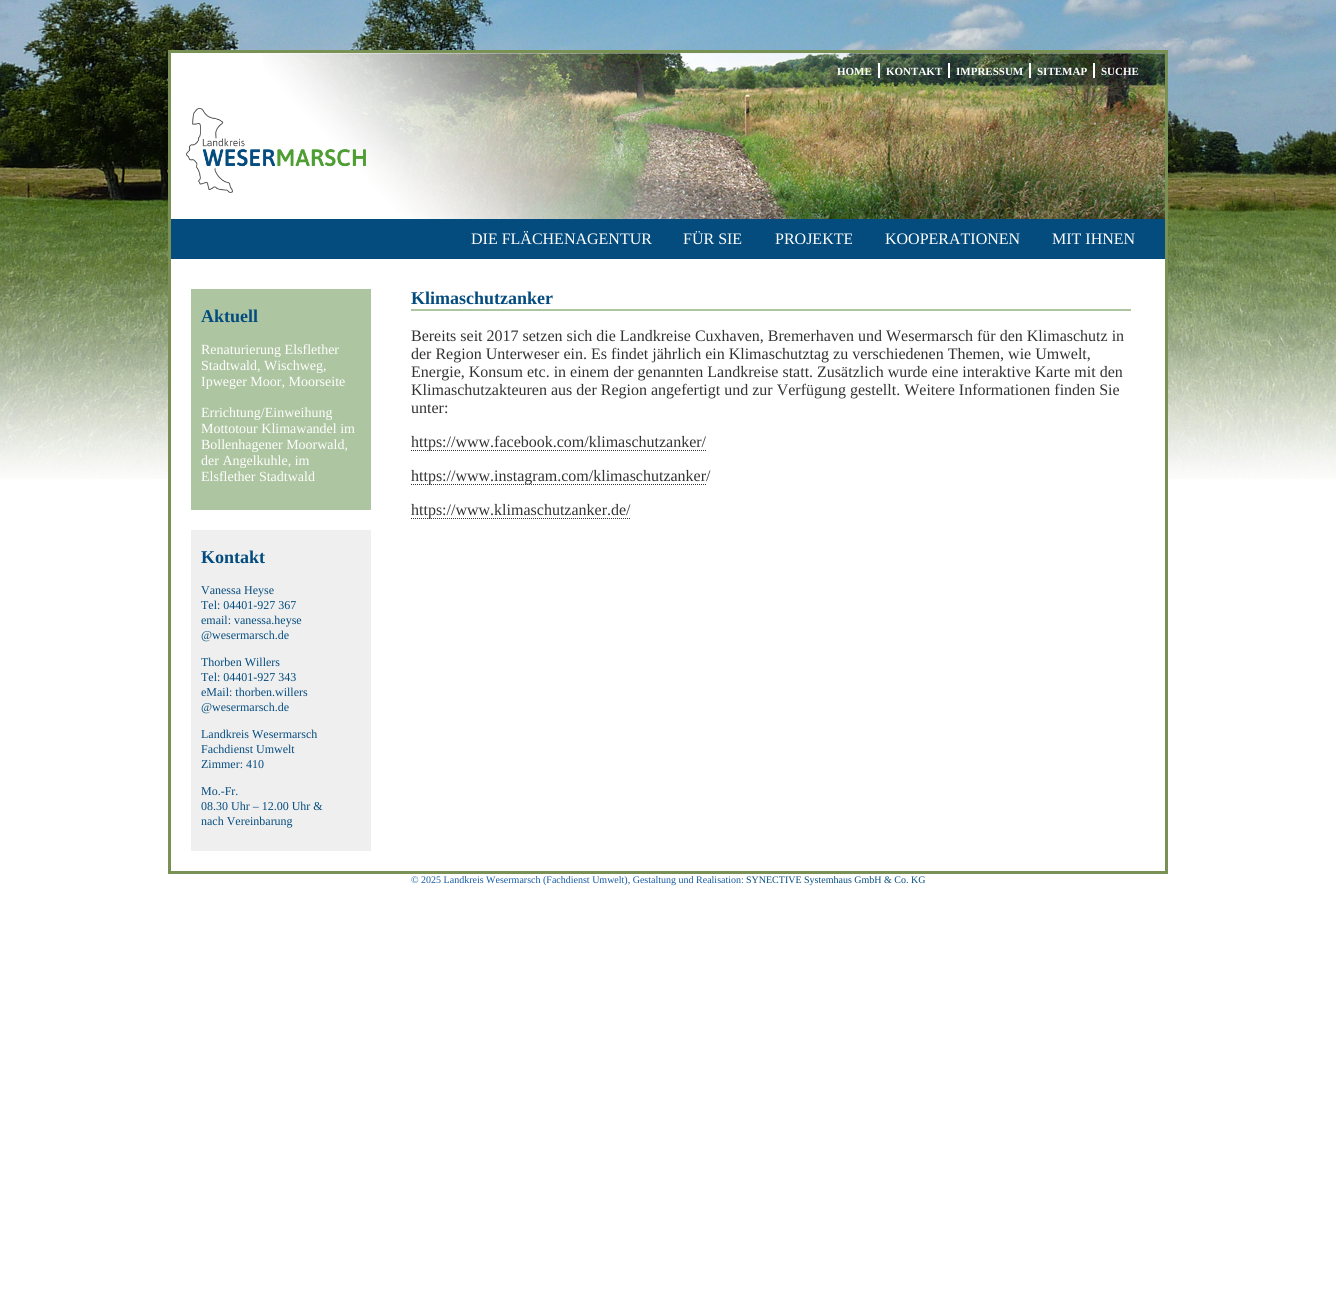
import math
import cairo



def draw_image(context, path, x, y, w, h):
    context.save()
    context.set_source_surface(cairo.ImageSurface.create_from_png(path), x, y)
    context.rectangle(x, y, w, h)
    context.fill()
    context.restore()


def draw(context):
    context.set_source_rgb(1, 1, 1)
    context.paint()
    draw_image(context, "images/1.png", 0, 0, 1336, 479)
    context.set_source_rgb(1, 1, 1)
    context.rectangle(171, 53, 994, 426)
    context.fill()
    context.rectangle(169.5, 51.5, 997, 821)
    context.set_source_rgb(121 / 255, 145 / 255, 84 / 255)
    context.set_line_width(3)
    context.stroke()
    draw_image(context, "images/2.png", 263, 53, 902, 166)
    context.set_source_rgb(1, 1, 1)
    context.rectangle(878, 63, 2, 15)
    context.fill()
    context.rectangle(948, 63, 2, 15)
    context.fill()
    context.rectangle(1029, 63, 2, 15)
    context.fill()
    context.rectangle(1093, 63, 2, 15)
    context.fill()
    draw_image(context, "images/3.png", 186, 108, 180, 85)
    context.set_source_rgb(4 / 255, 76 / 255, 126 / 255)
    context.rectangle(171, 219, 994, 40)
    context.fill()
    context.set_source_rgb(173 / 255, 197 / 255, 161 / 255)
    context.rectangle(191, 289, 180, 221)
    context.fill()
    context.set_source_rgb(239 / 255, 239 / 255, 239 / 255)
    context.rectangle(191, 530, 180, 321)
    context.fill()
    context.set_source_rgb(173 / 255, 197 / 255, 161 / 255)
    context.rectangle(411, 309, 720, 2)
    context.fill()
    context.new_path()
    context.move_to(411, 450.5)
    context.line_to(706, 450.5)
    context.set_source_rgb(51 / 255, 51 / 255, 51 / 255)
    context.set_line_width(1)
    context.set_dash([1, 1])
    context.stroke()
    context.new_path()
    context.move_to(411, 484.5)
    context.line_to(706, 484.5)
    context.stroke()
    context.new_path()
    context.move_to(411, 518.5)
    context.line_to(631, 518.5)
    context.stroke()
    context.select_font_face("Liberation Serif", cairo.FontSlant.NORMAL, cairo.FontWeight.BOLD)
    context.set_font_size(11)
    context.set_source_rgb(1, 1, 1)
    context.move_to(837, 75)
    context.show_text("HOME")
    context.move_to(886, 75)
    context.show_text("KONTAKT")
    context.move_to(956, 75)
    context.show_text("IMPRESSUM")
    context.move_to(1037, 75)
    context.show_text("SITEMAP")
    context.move_to(1101, 75)
    context.show_text("SUCHE")
    context.select_font_face("Liberation Serif")
    context.set_font_size(16)
    context.move_to(471, 244)
    context.show_text("DIE FLÄCHENAGENTUR")
    context.move_to(683, 244)
    context.show_text("FÜR SIE")
    context.move_to(775, 244)
    context.show_text("PROJEKTE")
    context.move_to(885, 244)
    context.show_text("KOOPERATIONEN")
    context.move_to(1052, 244)
    context.show_text("MIT IHNEN")
    context.select_font_face("Liberation Serif", cairo.FontSlant.NORMAL, cairo.FontWeight.BOLD)
    context.set_font_size(18)
    context.set_source_rgb(4 / 255, 76 / 255, 126 / 255)
    context.move_to(201, 322)
    context.show_text("Aktuell")
    context.select_font_face("Liberation Serif")
    context.set_font_size(14)
    context.set_source_rgb(1, 1, 1)
    context.move_to(201, 354)
    context.show_text("Renaturierung Elsflether")
    context.move_to(201, 370)
    context.show_text("Stadtwald, Wischweg,")
    context.move_to(201, 386)
    context.show_text("Ipweger Moor, Moorseite")
    context.move_to(201, 417)
    context.show_text("Errichtung/Einweihung")
    context.move_to(201, 433)
    context.show_text("Mottotour Klimawandel im")
    context.move_to(201, 449)
    context.show_text("Bollenhagener Moorwald,")
    context.move_to(201, 465)
    context.show_text("der Angelkuhle, im")
    context.move_to(201, 481)
    context.show_text("Elsflether Stadtwald")
    context.select_font_face("Liberation Serif", cairo.FontSlant.NORMAL, cairo.FontWeight.BOLD)
    context.set_font_size(18)
    context.set_source_rgb(4 / 255, 76 / 255, 126 / 255)
    context.move_to(201, 563)
    context.show_text("Kontakt")
    context.select_font_face("Liberation Serif")
    context.set_font_size(12)
    context.move_to(201, 594)
    context.show_text("Vanessa Heyse")
    context.move_to(201, 609)
    context.show_text("Tel: 04401-927 367")
    context.move_to(201, 624)
    context.show_text("email: vanessa.heyse")
    context.move_to(201, 639)
    context.show_text("@wesermarsch.de")
    context.move_to(201, 666)
    context.show_text("Thorben Willers")
    context.move_to(201, 681)
    context.show_text("Tel: 04401-927 343")
    context.move_to(201, 696)
    context.show_text("eMail: thorben.willers")
    context.move_to(201, 711)
    context.show_text("@wesermarsch.de")
    context.move_to(201, 738)
    context.show_text("Landkreis Wesermarsch")
    context.move_to(201, 753)
    context.show_text("Fachdienst Umwelt")
    context.move_to(201, 768)
    context.show_text("Zimmer: 410")
    context.move_to(201, 795)
    context.show_text("Mo.-Fr.")
    context.move_to(201, 810)
    context.show_text("08.30 Uhr – 12.00 Uhr &")
    context.move_to(201, 825)
    context.show_text("nach Vereinbarung")
    context.select_font_face("Liberation Serif", cairo.FontSlant.NORMAL, cairo.FontWeight.BOLD)
    context.set_font_size(18)
    context.move_to(411, 304)
    context.show_text("Klimaschutzanker")
    context.select_font_face("Liberation Serif")
    context.set_font_size(16)
    context.set_source_rgb(51 / 255, 51 / 255, 51 / 255)
    context.move_to(411, 341)
    context.show_text("Bereits seit 2017 setzen sich die Landkreise Cuxhaven, Bremerhaven und Wesermarsch für den Klimaschutz in")
    context.move_to(411, 359)
    context.show_text("der Region Unterweser ein. Es findet jährlich ein Klimaschutztag zu verschiedenen Themen, wie Umwelt,")
    context.move_to(411, 377)
    context.show_text("Energie, Konsum etc. in einem der genannten Landkreise statt. Zusätzlich wurde eine interaktive Karte mit den")
    context.move_to(411, 395)
    context.show_text("Klimaschutzakteuren aus der Region angefertigt und zur Verfügung gestellt. Weitere Informationen finden Sie")
    context.move_to(411, 413)
    context.show_text("unter:")
    context.move_to(411, 447)
    context.show_text("https://www.facebook.com/klimaschutzanker/")
    context.move_to(411, 481)
    context.show_text("https://www.instagram.com/klimaschutzanker/")
    context.move_to(411, 515)
    context.show_text("https://www.klimaschutzanker.de/")
    context.set_font_size(10)
    context.set_source_rgb(21 / 255, 89 / 255, 160 / 255)
    context.move_to(411, 883)
    context.show_text("© 2025 Landkreis Wesermarsch (Fachdienst Umwelt), Gestaltung und Realisation:")
    context.set_source_rgb(4 / 255, 76 / 255, 126 / 255)
    context.move_to(746, 883)
    context.show_text("SYNECTIVE Systemhaus GmbH & Co. KG")


surface = cairo.ImageSurface(cairo.Format.RGB24, 1336, 1306)
context = cairo.Context(surface)
options = cairo.FontOptions()
options.set_hint_metrics(cairo.HintMetrics.OFF)
options.set_hint_style(cairo.HintStyle.NONE)
context.set_font_options(options)
context.set_miter_limit(4)
draw(context)
surface.write_to_png("out.png")
